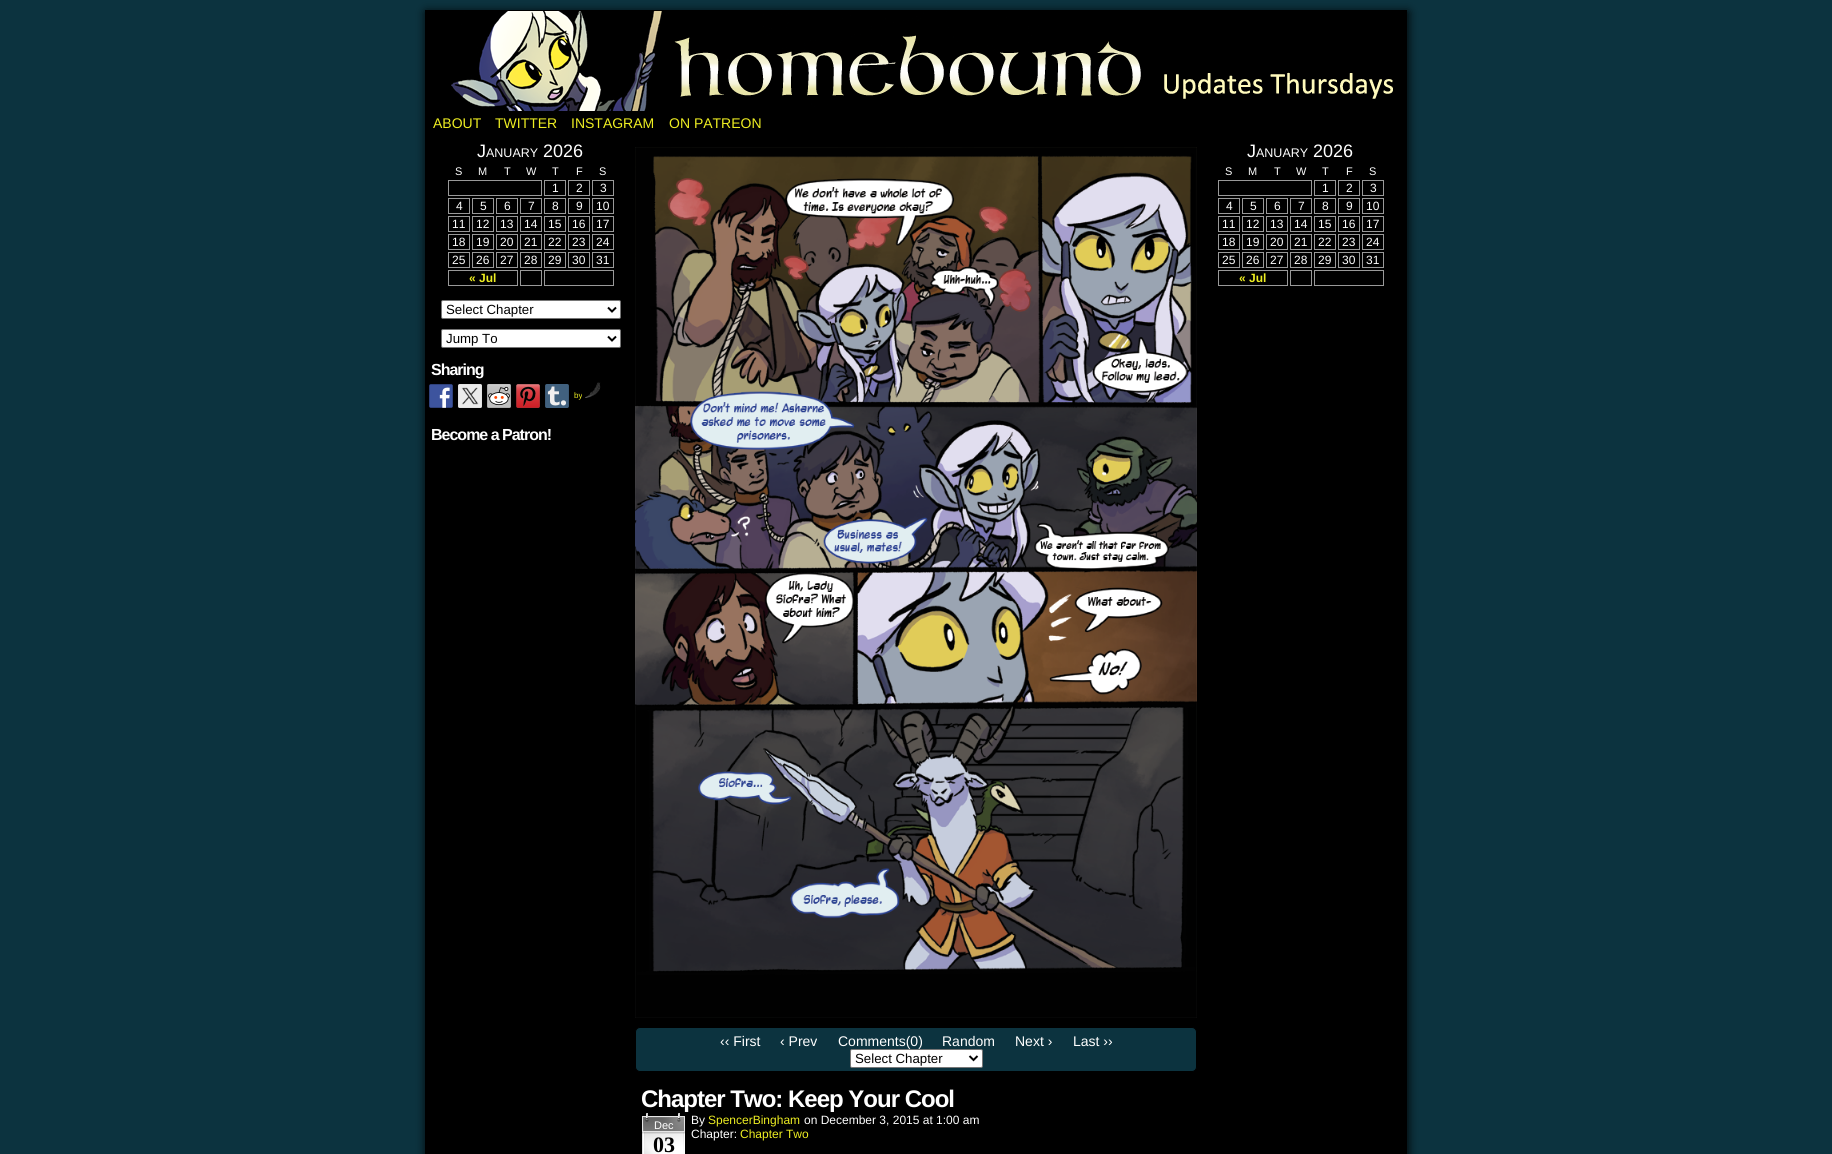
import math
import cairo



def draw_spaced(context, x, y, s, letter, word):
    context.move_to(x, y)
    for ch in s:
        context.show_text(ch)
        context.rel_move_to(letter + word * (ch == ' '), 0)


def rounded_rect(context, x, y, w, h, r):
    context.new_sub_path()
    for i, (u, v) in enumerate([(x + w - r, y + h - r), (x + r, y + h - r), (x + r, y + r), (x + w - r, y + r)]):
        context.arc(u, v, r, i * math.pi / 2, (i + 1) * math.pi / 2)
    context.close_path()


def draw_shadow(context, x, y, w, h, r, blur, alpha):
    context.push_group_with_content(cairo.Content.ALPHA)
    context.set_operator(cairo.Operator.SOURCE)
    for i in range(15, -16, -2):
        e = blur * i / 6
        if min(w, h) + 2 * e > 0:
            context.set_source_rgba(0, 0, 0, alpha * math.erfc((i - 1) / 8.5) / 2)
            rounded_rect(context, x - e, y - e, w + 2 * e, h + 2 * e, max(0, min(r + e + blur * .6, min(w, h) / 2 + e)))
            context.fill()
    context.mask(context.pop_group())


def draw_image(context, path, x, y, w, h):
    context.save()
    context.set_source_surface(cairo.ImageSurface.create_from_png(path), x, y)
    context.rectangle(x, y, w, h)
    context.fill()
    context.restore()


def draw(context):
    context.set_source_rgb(12 / 255, 51 / 255, 63 / 255)
    context.paint()
    context.set_source_rgb(0, 0, 0)
    draw_shadow(context, 426, 12, 982, 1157, 0, 5, 1)
    context.set_source_rgb(0, 0, 0)
    context.rectangle(425, 10, 982, 1144)
    context.fill()
    draw_image(context, "images/1.png", 451, 11, 942, 100)
    context.rectangle(448.5, 180.5, 93, 15)
    context.set_source_rgb(153 / 255, 153 / 255, 153 / 255)
    context.set_line_width(1)
    context.stroke()
    context.rectangle(544.5, 180.5, 21, 15)
    context.stroke()
    context.rectangle(568.5, 180.5, 21, 15)
    context.stroke()
    context.rectangle(592.5, 180.5, 21, 15)
    context.stroke()
    context.rectangle(448.5, 198.5, 21, 15)
    context.stroke()
    context.rectangle(472.5, 198.5, 21, 15)
    context.stroke()
    context.rectangle(496.5, 198.5, 21, 15)
    context.stroke()
    context.rectangle(520.5, 198.5, 21, 15)
    context.stroke()
    context.rectangle(544.5, 198.5, 21, 15)
    context.stroke()
    context.rectangle(568.5, 198.5, 21, 15)
    context.stroke()
    context.rectangle(592.5, 198.5, 21, 15)
    context.stroke()
    context.rectangle(448.5, 216.5, 21, 15)
    context.stroke()
    context.rectangle(472.5, 216.5, 21, 15)
    context.stroke()
    context.rectangle(496.5, 216.5, 21, 15)
    context.stroke()
    context.rectangle(520.5, 216.5, 21, 15)
    context.stroke()
    context.rectangle(544.5, 216.5, 21, 15)
    context.stroke()
    context.rectangle(568.5, 216.5, 21, 15)
    context.stroke()
    context.rectangle(592.5, 216.5, 21, 15)
    context.stroke()
    context.rectangle(448.5, 234.5, 21, 15)
    context.stroke()
    context.rectangle(472.5, 234.5, 21, 15)
    context.stroke()
    context.rectangle(496.5, 234.5, 21, 15)
    context.stroke()
    context.rectangle(520.5, 234.5, 21, 15)
    context.stroke()
    context.rectangle(544.5, 234.5, 21, 15)
    context.stroke()
    context.rectangle(568.5, 234.5, 21, 15)
    context.stroke()
    context.rectangle(592.5, 234.5, 21, 15)
    context.stroke()
    context.rectangle(448.5, 252.5, 21, 15)
    context.stroke()
    context.rectangle(472.5, 252.5, 21, 15)
    context.stroke()
    context.rectangle(496.5, 252.5, 21, 15)
    context.stroke()
    context.rectangle(520.5, 252.5, 21, 15)
    context.stroke()
    context.rectangle(544.5, 252.5, 21, 15)
    context.stroke()
    context.rectangle(568.5, 252.5, 21, 15)
    context.stroke()
    context.rectangle(592.5, 252.5, 21, 15)
    context.stroke()
    context.rectangle(448.5, 270.5, 69, 15)
    context.stroke()
    context.rectangle(520.5, 270.5, 21, 15)
    context.stroke()
    context.rectangle(544.5, 270.5, 69, 15)
    context.stroke()
    context.set_source_rgb(1, 1, 1)
    rounded_rect(context, 441.5, 300.5, 179, 18, 1.5)
    context.fill_preserve()
    context.set_source_rgb(118 / 255, 118 / 255, 118 / 255)
    context.stroke()
    context.new_path()
    context.move_to(608, 307.5)
    context.line_to(612, 311.5)
    context.line_to(616, 307.5)
    context.set_source_rgb(0, 0, 0)
    context.set_line_width(2)
    context.stroke()
    context.set_source_rgb(1, 1, 1)
    rounded_rect(context, 441.5, 329.5, 179, 18, 1.5)
    context.fill_preserve()
    context.set_source_rgb(118 / 255, 118 / 255, 118 / 255)
    context.set_line_width(1)
    context.stroke()
    context.new_path()
    context.move_to(608, 336.5)
    context.line_to(612, 340.5)
    context.line_to(616, 336.5)
    context.set_source_rgb(0, 0, 0)
    context.set_line_width(2)
    context.stroke()
    draw_image(context, "images/2.png", 429, 384, 24, 24)
    draw_image(context, "images/3.png", 458, 384, 24, 24)
    draw_image(context, "images/4.png", 487, 384, 24, 24)
    draw_image(context, "images/5.png", 516, 384, 24, 24)
    draw_image(context, "images/6.png", 545, 384, 24, 24)
    draw_image(context, "images/7.png", 585, 382, 16, 16)
    context.rectangle(1218.5, 180.5, 93, 15)
    context.set_source_rgb(153 / 255, 153 / 255, 153 / 255)
    context.set_line_width(1)
    context.stroke()
    context.rectangle(1314.5, 180.5, 21, 15)
    context.stroke()
    context.rectangle(1338.5, 180.5, 21, 15)
    context.stroke()
    context.rectangle(1362.5, 180.5, 21, 15)
    context.stroke()
    context.rectangle(1218.5, 198.5, 21, 15)
    context.stroke()
    context.rectangle(1242.5, 198.5, 21, 15)
    context.stroke()
    context.rectangle(1266.5, 198.5, 21, 15)
    context.stroke()
    context.rectangle(1290.5, 198.5, 21, 15)
    context.stroke()
    context.rectangle(1314.5, 198.5, 21, 15)
    context.stroke()
    context.rectangle(1338.5, 198.5, 21, 15)
    context.stroke()
    context.rectangle(1362.5, 198.5, 21, 15)
    context.stroke()
    context.rectangle(1218.5, 216.5, 21, 15)
    context.stroke()
    context.rectangle(1242.5, 216.5, 21, 15)
    context.stroke()
    context.rectangle(1266.5, 216.5, 21, 15)
    context.stroke()
    context.rectangle(1290.5, 216.5, 21, 15)
    context.stroke()
    context.rectangle(1314.5, 216.5, 21, 15)
    context.stroke()
    context.rectangle(1338.5, 216.5, 21, 15)
    context.stroke()
    context.rectangle(1362.5, 216.5, 21, 15)
    context.stroke()
    context.rectangle(1218.5, 234.5, 21, 15)
    context.stroke()
    context.rectangle(1242.5, 234.5, 21, 15)
    context.stroke()
    context.rectangle(1266.5, 234.5, 21, 15)
    context.stroke()
    context.rectangle(1290.5, 234.5, 21, 15)
    context.stroke()
    context.rectangle(1314.5, 234.5, 21, 15)
    context.stroke()
    context.rectangle(1338.5, 234.5, 21, 15)
    context.stroke()
    context.rectangle(1362.5, 234.5, 21, 15)
    context.stroke()
    context.rectangle(1218.5, 252.5, 21, 15)
    context.stroke()
    context.rectangle(1242.5, 252.5, 21, 15)
    context.stroke()
    context.rectangle(1266.5, 252.5, 21, 15)
    context.stroke()
    context.rectangle(1290.5, 252.5, 21, 15)
    context.stroke()
    context.rectangle(1314.5, 252.5, 21, 15)
    context.stroke()
    context.rectangle(1338.5, 252.5, 21, 15)
    context.stroke()
    context.rectangle(1362.5, 252.5, 21, 15)
    context.stroke()
    context.rectangle(1218.5, 270.5, 69, 15)
    context.stroke()
    context.rectangle(1290.5, 270.5, 21, 15)
    context.stroke()
    context.rectangle(1314.5, 270.5, 69, 15)
    context.stroke()
    draw_image(context, "images/8.png", 635, 147, 562, 871)
    context.set_source_rgb(12 / 255, 51 / 255, 63 / 255)
    rounded_rect(context, 635.5, 1027.5, 561, 44, 4.5)
    context.fill_preserve()
    context.set_source_rgb(0, 0, 0)
    context.stroke()
    context.set_source_rgb(1, 1, 1)
    rounded_rect(context, 850.5, 1049.5, 132, 18, 1.5)
    context.fill_preserve()
    context.set_source_rgb(118 / 255, 118 / 255, 118 / 255)
    context.stroke()
    context.new_path()
    context.move_to(969.5, 1056)
    context.line_to(973.5, 1060)
    context.line_to(977.5, 1056)
    context.set_source_rgb(0, 0, 0)
    context.set_line_width(2)
    context.stroke()
    draw_image(context, "images/9.png", 642, 1113, 43, 41)
    context.select_font_face("Liberation Sans")
    context.set_font_size(14)
    context.set_source_rgb(238 / 255, 238 / 255, 34 / 255)
    context.move_to(433, 128)
    context.show_text("ABOUT")
    context.move_to(495, 128)
    context.show_text("TWITTER")
    context.move_to(571, 128)
    context.show_text("INSTAGRAM")
    context.move_to(669, 128)
    context.show_text("ON PATREON")
    context.set_font_size(18)
    context.set_source_rgb(1, 1, 1)
    context.move_to(477, 157)
    context.show_text("J")
    context.set_font_size(12.5)
    context.move_to(486, 157)
    context.show_text("ANUARY")
    context.set_font_size(18)
    context.move_to(543, 157)
    context.show_text("2026")
    context.set_font_size(11)
    context.move_to(455, 175)
    context.show_text("S")
    context.move_to(478, 175)
    context.show_text("M")
    context.move_to(504, 175)
    context.show_text("T")
    context.move_to(526, 175)
    context.show_text("W")
    context.move_to(552, 175)
    context.show_text("T")
    context.move_to(576, 175)
    context.show_text("F")
    context.move_to(599, 175)
    context.show_text("S")
    context.set_font_size(12)
    context.move_to(552, 192)
    context.show_text("1")
    context.move_to(576, 192)
    context.show_text("2")
    context.move_to(600, 192)
    context.show_text("3")
    context.move_to(456, 210)
    context.show_text("4")
    context.move_to(480, 210)
    context.show_text("5")
    context.move_to(504, 210)
    context.show_text("6")
    context.move_to(528, 210)
    context.show_text("7")
    context.move_to(552, 210)
    context.show_text("8")
    context.move_to(576, 210)
    context.show_text("9")
    context.move_to(596, 210)
    context.show_text("10")
    context.move_to(452, 228)
    context.show_text("11")
    context.move_to(476, 228)
    context.show_text("12")
    context.move_to(500, 228)
    context.show_text("13")
    context.move_to(524, 228)
    context.show_text("14")
    context.move_to(548, 228)
    context.show_text("15")
    context.move_to(572, 228)
    context.show_text("16")
    context.move_to(596, 228)
    context.show_text("17")
    context.move_to(452, 246)
    context.show_text("18")
    context.move_to(476, 246)
    context.show_text("19")
    context.move_to(500, 246)
    context.show_text("20")
    context.move_to(524, 246)
    context.show_text("21")
    context.move_to(548, 246)
    context.show_text("22")
    context.move_to(572, 246)
    context.show_text("23")
    context.move_to(596, 246)
    context.show_text("24")
    context.move_to(452, 264)
    context.show_text("25")
    context.move_to(476, 264)
    context.show_text("26")
    context.move_to(500, 264)
    context.show_text("27")
    context.move_to(524, 264)
    context.show_text("28")
    context.move_to(548, 264)
    context.show_text("29")
    context.move_to(572, 264)
    context.show_text("30")
    context.move_to(596, 264)
    context.show_text("31")
    context.select_font_face("Liberation Sans", cairo.FontSlant.NORMAL, cairo.FontWeight.BOLD)
    context.set_source_rgb(238 / 255, 238 / 255, 34 / 255)
    context.move_to(469, 282)
    context.show_text("« Jul")
    context.select_font_face("Liberation Sans")
    context.set_font_size(13.25)
    context.set_source_rgb(0, 0, 0)
    context.move_to(446, 314)
    context.show_text("Select Chapter")
    context.move_to(446, 343)
    context.show_text("Jump To")
    context.select_font_face("Liberation Sans", cairo.FontSlant.NORMAL, cairo.FontWeight.BOLD)
    context.set_font_size(16)
    context.set_source_rgb(1, 1, 1)
    draw_spaced(context, 431, 375, "Sharing", -1, 0)
    context.select_font_face("Liberation Sans")
    context.set_font_size(8)
    context.set_source_rgb(238 / 255, 238 / 255, 34 / 255)
    context.move_to(574, 398)
    context.show_text("by")
    context.select_font_face("Liberation Sans", cairo.FontSlant.NORMAL, cairo.FontWeight.BOLD)
    context.set_font_size(16)
    context.set_source_rgb(1, 1, 1)
    draw_spaced(context, 431, 440, "Become a Patron!", -1, 0)
    context.select_font_face("Liberation Sans")
    context.set_font_size(18)
    context.move_to(1247, 157)
    context.show_text("J")
    context.set_font_size(12.5)
    context.move_to(1256, 157)
    context.show_text("ANUARY")
    context.set_font_size(18)
    context.move_to(1313, 157)
    context.show_text("2026")
    context.set_font_size(11)
    context.move_to(1225, 175)
    context.show_text("S")
    context.move_to(1248, 175)
    context.show_text("M")
    context.move_to(1274, 175)
    context.show_text("T")
    context.move_to(1296, 175)
    context.show_text("W")
    context.move_to(1322, 175)
    context.show_text("T")
    context.move_to(1346, 175)
    context.show_text("F")
    context.move_to(1369, 175)
    context.show_text("S")
    context.set_font_size(12)
    context.move_to(1322, 192)
    context.show_text("1")
    context.move_to(1346, 192)
    context.show_text("2")
    context.move_to(1370, 192)
    context.show_text("3")
    context.move_to(1226, 210)
    context.show_text("4")
    context.move_to(1250, 210)
    context.show_text("5")
    context.move_to(1274, 210)
    context.show_text("6")
    context.move_to(1298, 210)
    context.show_text("7")
    context.move_to(1322, 210)
    context.show_text("8")
    context.move_to(1346, 210)
    context.show_text("9")
    context.move_to(1366, 210)
    context.show_text("10")
    context.move_to(1222, 228)
    context.show_text("11")
    context.move_to(1246, 228)
    context.show_text("12")
    context.move_to(1270, 228)
    context.show_text("13")
    context.move_to(1294, 228)
    context.show_text("14")
    context.move_to(1318, 228)
    context.show_text("15")
    context.move_to(1342, 228)
    context.show_text("16")
    context.move_to(1366, 228)
    context.show_text("17")
    context.move_to(1222, 246)
    context.show_text("18")
    context.move_to(1246, 246)
    context.show_text("19")
    context.move_to(1270, 246)
    context.show_text("20")
    context.move_to(1294, 246)
    context.show_text("21")
    context.move_to(1318, 246)
    context.show_text("22")
    context.move_to(1342, 246)
    context.show_text("23")
    context.move_to(1366, 246)
    context.show_text("24")
    context.move_to(1222, 264)
    context.show_text("25")
    context.move_to(1246, 264)
    context.show_text("26")
    context.move_to(1270, 264)
    context.show_text("27")
    context.move_to(1294, 264)
    context.show_text("28")
    context.move_to(1318, 264)
    context.show_text("29")
    context.move_to(1342, 264)
    context.show_text("30")
    context.move_to(1366, 264)
    context.show_text("31")
    context.select_font_face("Liberation Sans", cairo.FontSlant.NORMAL, cairo.FontWeight.BOLD)
    context.set_source_rgb(238 / 255, 238 / 255, 34 / 255)
    context.move_to(1239, 282)
    context.show_text("« Jul")
    context.select_font_face("Liberation Sans")
    context.set_font_size(14)
    context.set_source_rgb(1, 1, 1)
    context.move_to(720, 1046)
    context.show_text("‹‹ First")
    context.move_to(780, 1046)
    context.show_text("‹ Prev")
    context.move_to(838, 1046)
    context.show_text("Comments(0)")
    context.move_to(942, 1046)
    context.show_text("Random")
    context.move_to(1015, 1046)
    context.show_text("Next ›")
    context.move_to(1073, 1046)
    context.show_text("Last ››")
    context.set_font_size(13.25)
    context.set_source_rgb(0, 0, 0)
    context.move_to(855, 1063)
    context.show_text("Select Chapter")
    context.select_font_face("Liberation Sans", cairo.FontSlant.NORMAL, cairo.FontWeight.BOLD)
    context.set_font_size(24)
    context.set_source_rgb(1, 1, 1)
    draw_spaced(context, 641, 1107, "Chapter Two: Keep Your Cool", -1, 0)
    context.select_font_face("Liberation Sans")
    context.set_font_size(11)
    context.move_to(654, 1129)
    context.show_text("Dec")
    context.select_font_face("Liberation Serif", cairo.FontSlant.NORMAL, cairo.FontWeight.BOLD)
    context.set_font_size(22)
    context.set_source_rgb(0, 0, 0)
    context.move_to(653, 1152)
    context.show_text("03")
    context.select_font_face("Liberation Sans")
    context.set_font_size(12)
    context.set_source_rgb(1, 1, 1)
    context.move_to(691, 1124)
    context.show_text("By")
    context.set_source_rgb(238 / 255, 238 / 255, 34 / 255)
    context.move_to(708, 1124)
    context.show_text("SpencerBingham")
    context.set_source_rgb(1, 1, 1)
    context.move_to(804, 1124)
    context.show_text("on December 3, 2015 at 1:00 am")
    context.move_to(691, 1138)
    context.show_text("Chapter:")
    context.set_source_rgb(238 / 255, 238 / 255, 34 / 255)
    context.move_to(740, 1138)
    context.show_text("Chapter Two")


surface = cairo.ImageSurface(cairo.Format.RGB24, 1832, 1154)
context = cairo.Context(surface)
options = cairo.FontOptions()
options.set_hint_metrics(cairo.HintMetrics.OFF)
options.set_hint_style(cairo.HintStyle.NONE)
context.set_font_options(options)
context.set_miter_limit(4)
draw(context)
surface.write_to_png("out.png")
